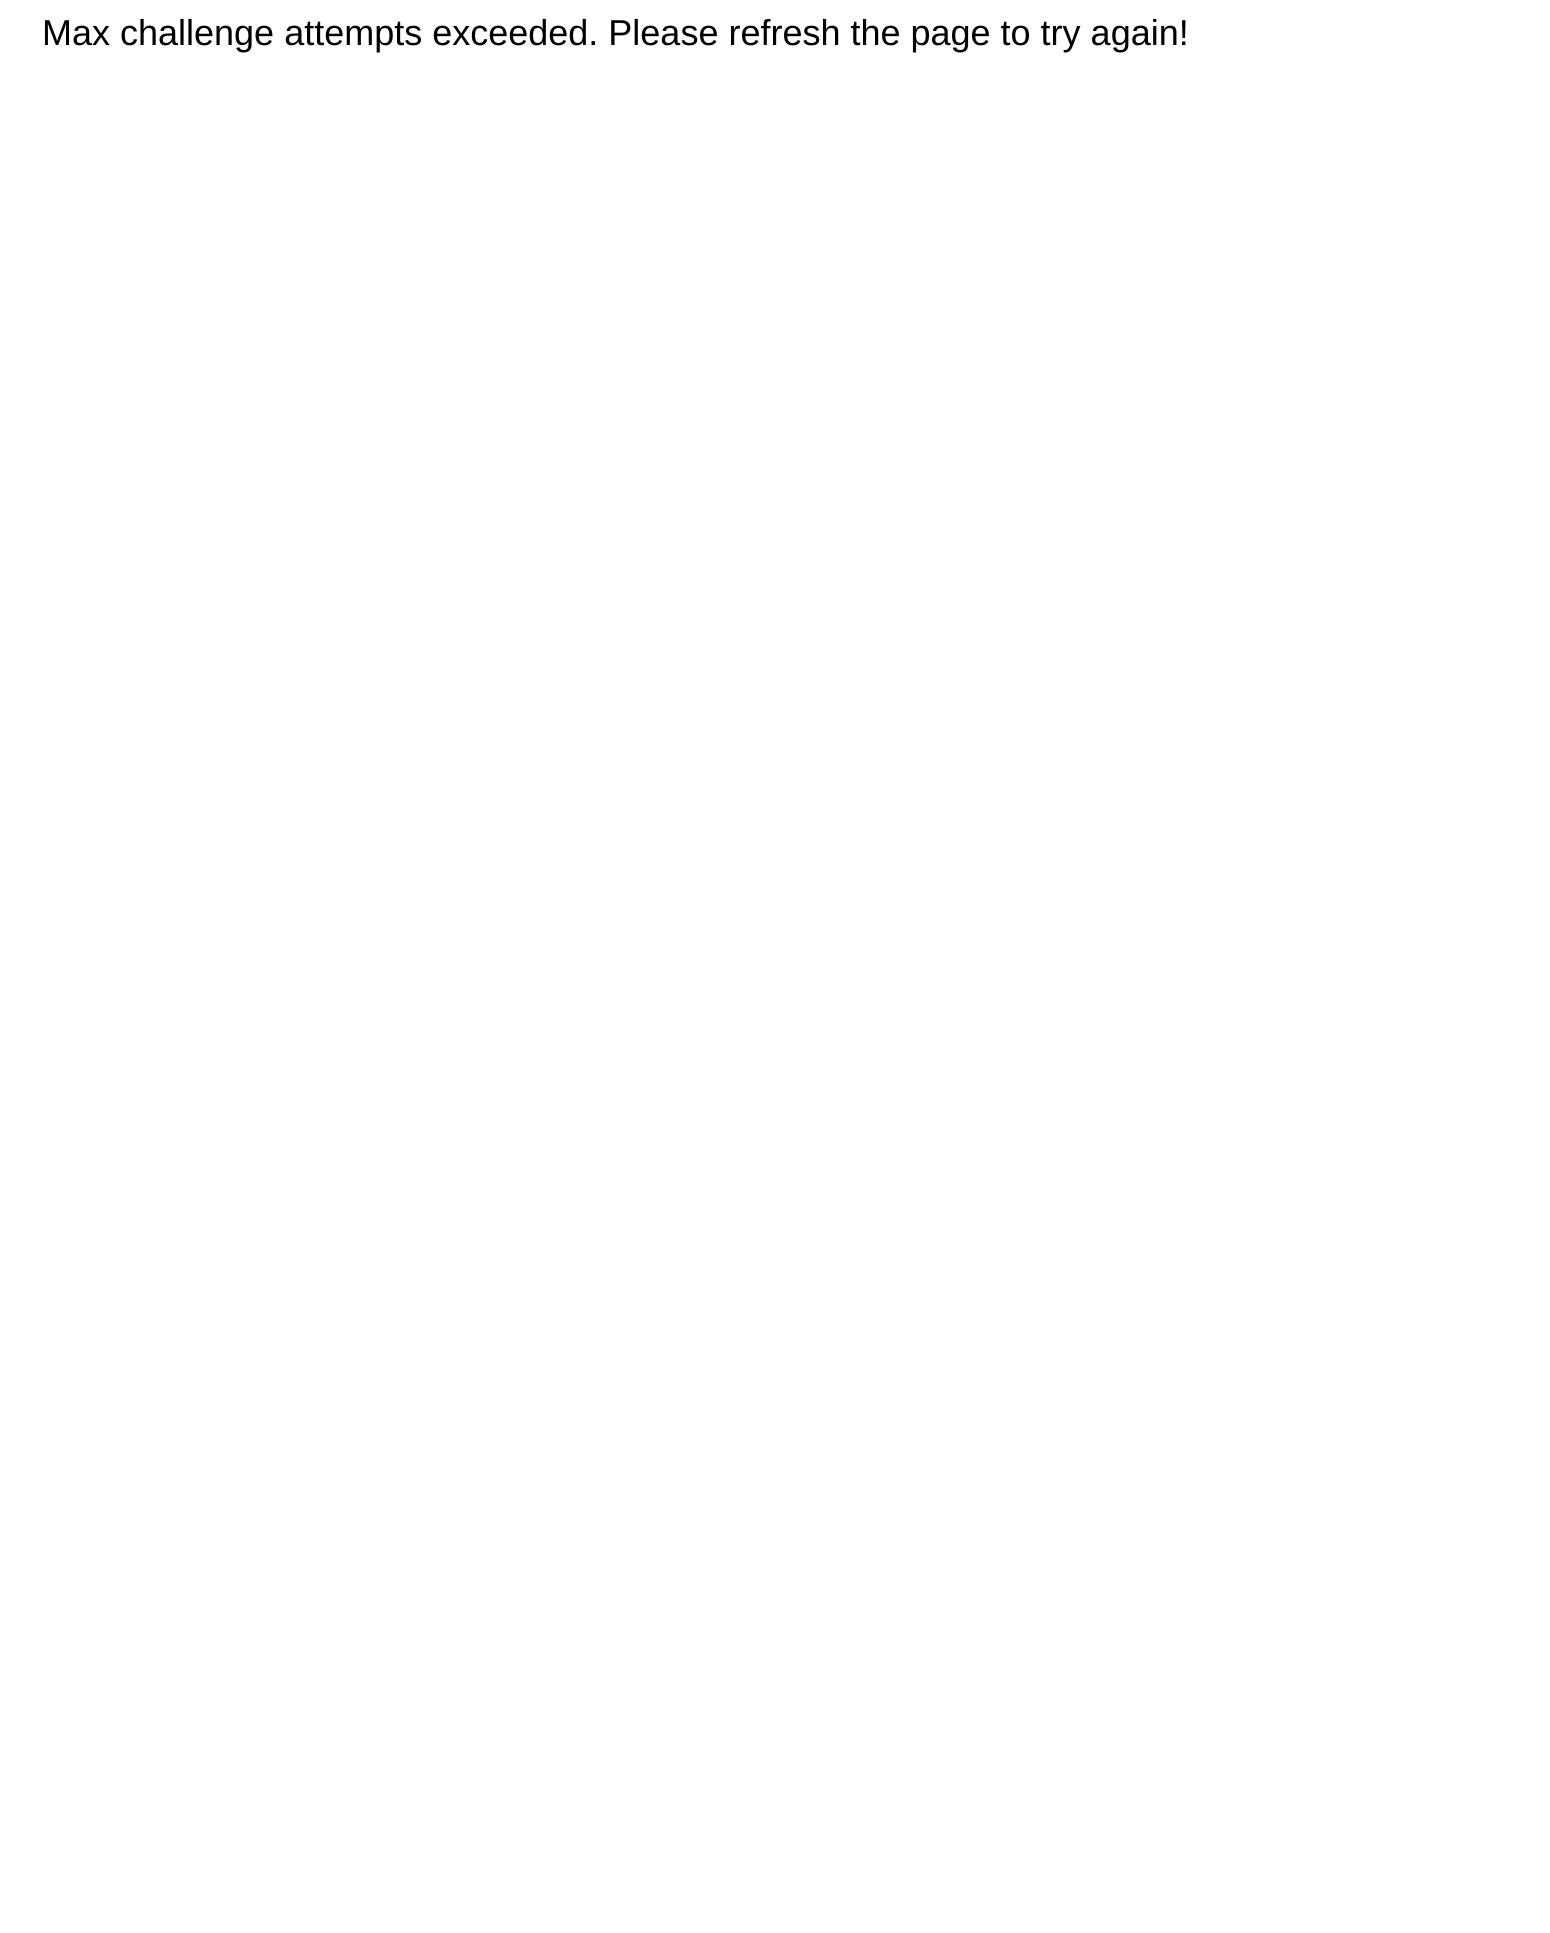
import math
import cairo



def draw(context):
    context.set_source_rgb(1, 1, 1)
    context.paint()
    context.select_font_face("Liberation Sans")
    context.set_font_size(36)
    context.set_source_rgb(0, 0, 0)
    context.move_to(42, 45)
    context.show_text("Max challenge attempts exceeded. Please refresh the page to try again!")


surface = cairo.ImageSurface(cairo.Format.RGB24, 1550, 1933)
context = cairo.Context(surface)
options = cairo.FontOptions()
options.set_hint_metrics(cairo.HintMetrics.OFF)
options.set_hint_style(cairo.HintStyle.NONE)
context.set_font_options(options)
context.set_miter_limit(4)
draw(context)
surface.write_to_png("out.png")
